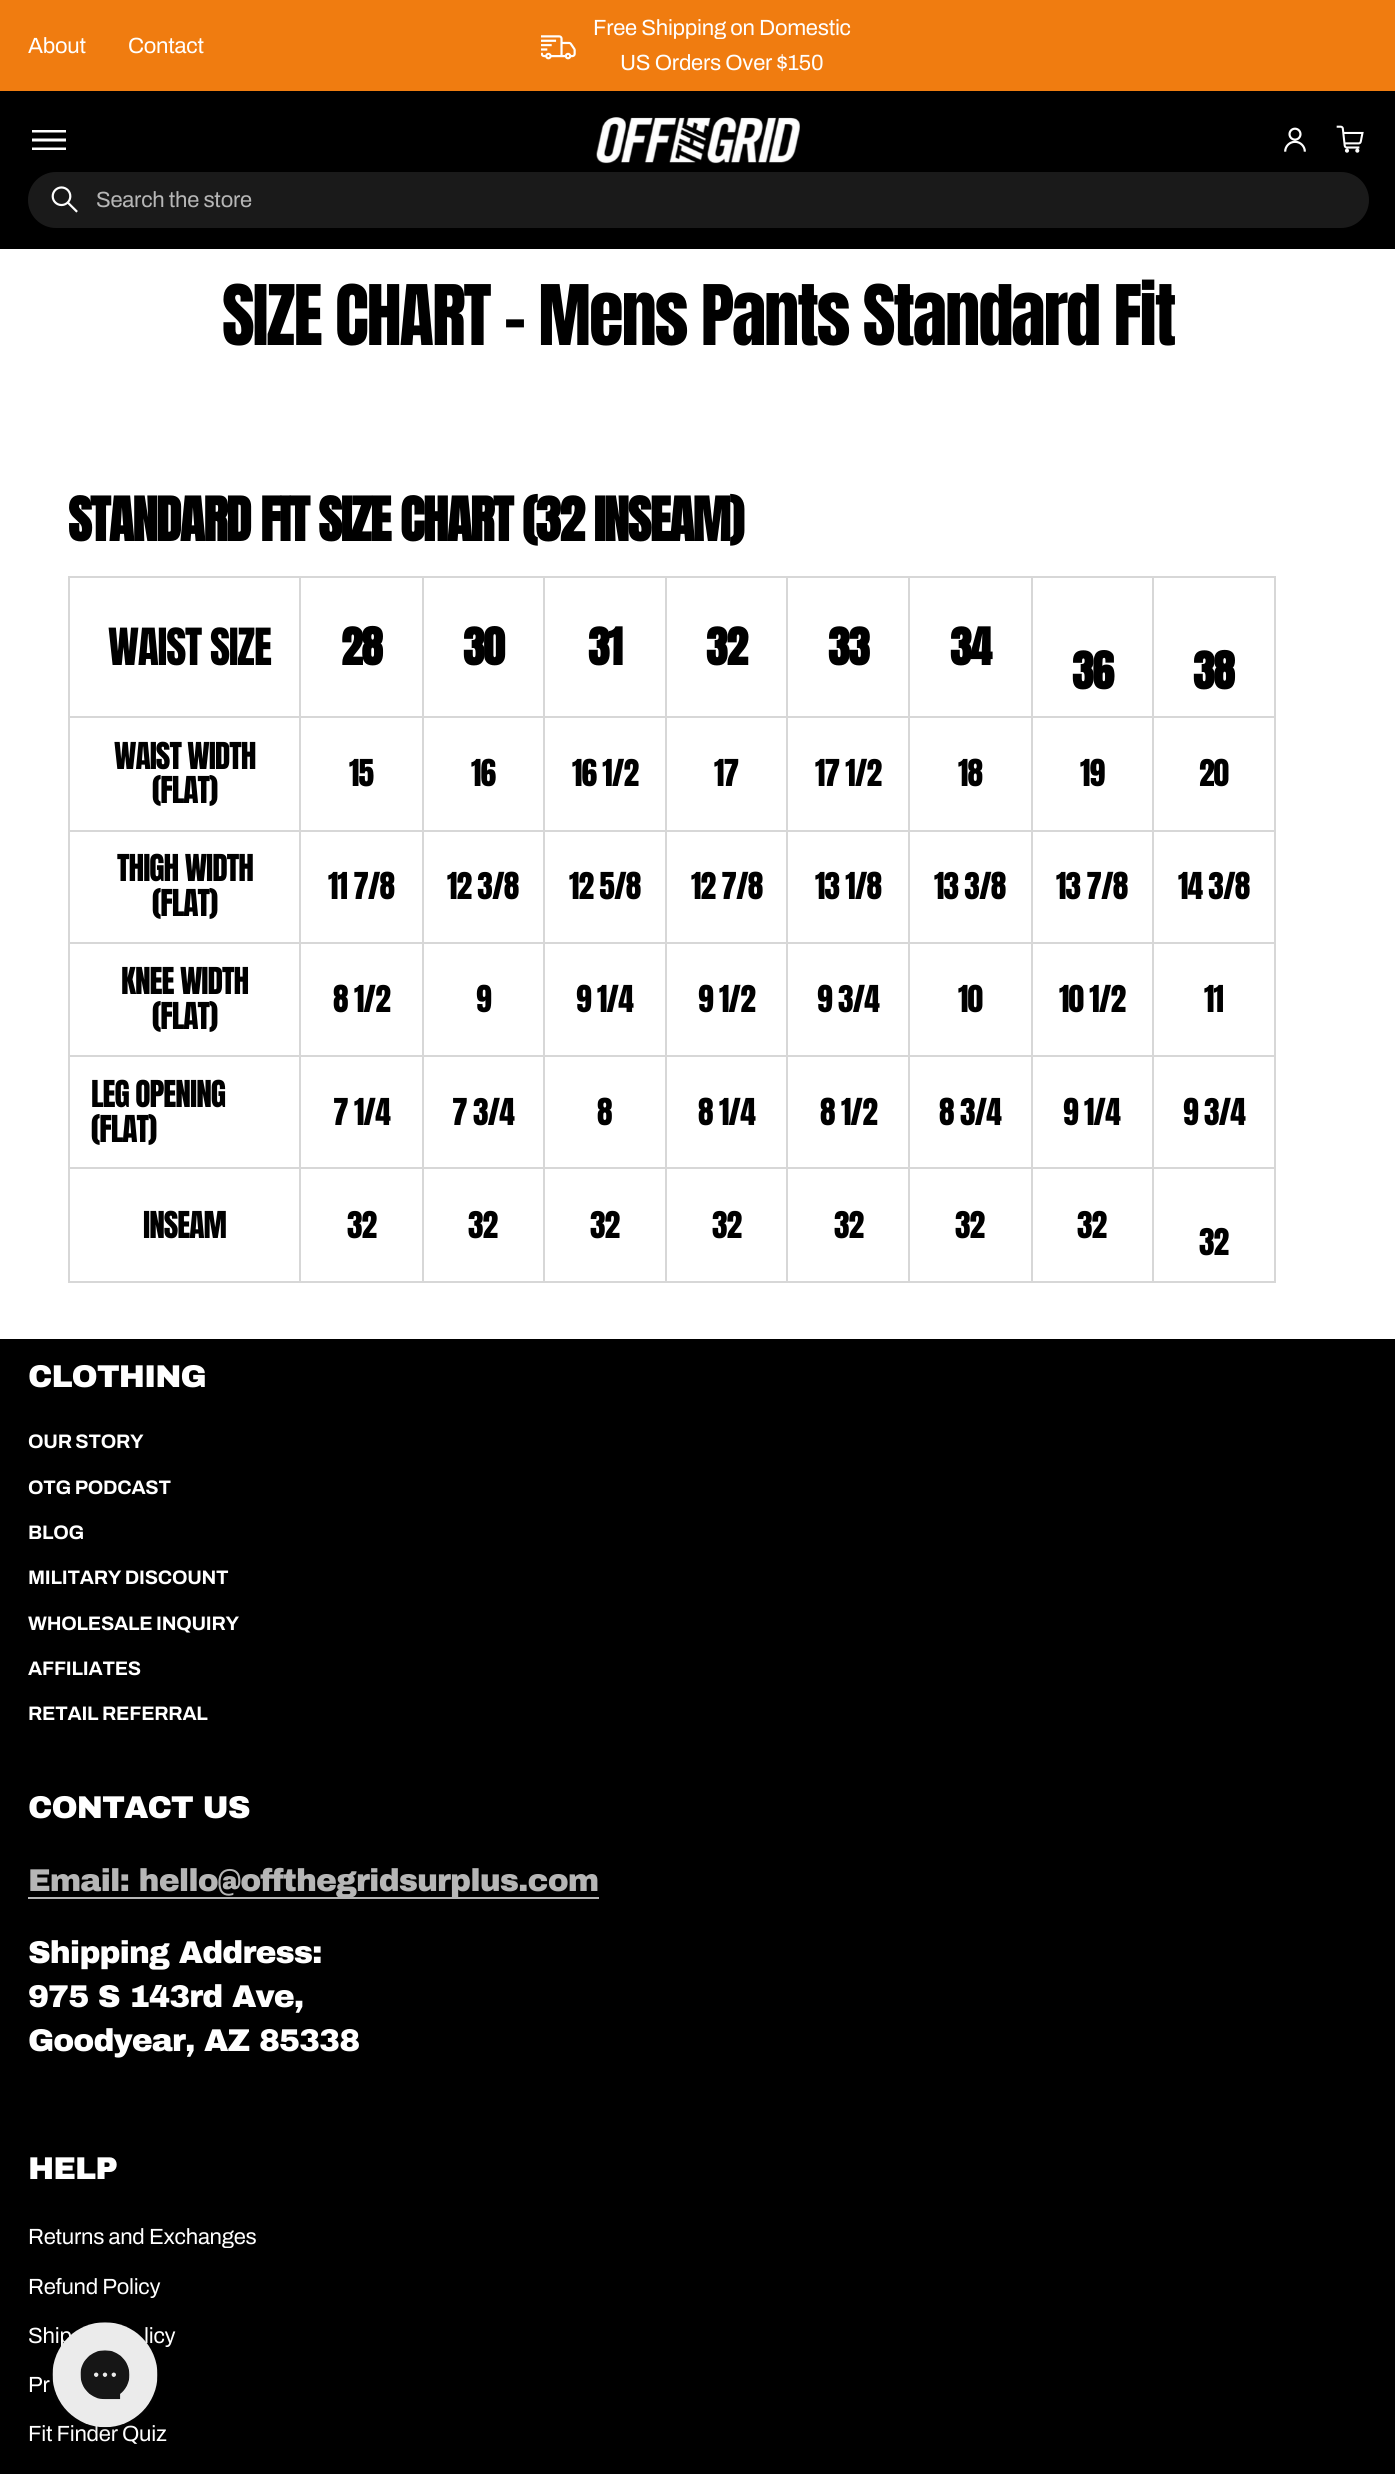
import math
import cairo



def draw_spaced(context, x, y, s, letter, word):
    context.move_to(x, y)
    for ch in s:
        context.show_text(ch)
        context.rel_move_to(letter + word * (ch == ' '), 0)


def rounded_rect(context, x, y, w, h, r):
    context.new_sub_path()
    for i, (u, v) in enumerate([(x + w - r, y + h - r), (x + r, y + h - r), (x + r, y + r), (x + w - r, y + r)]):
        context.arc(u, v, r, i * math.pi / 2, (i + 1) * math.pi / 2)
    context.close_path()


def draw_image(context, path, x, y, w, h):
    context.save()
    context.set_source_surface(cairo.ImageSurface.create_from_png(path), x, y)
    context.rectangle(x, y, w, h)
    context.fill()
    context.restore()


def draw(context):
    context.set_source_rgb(1, 1, 1)
    context.paint()
    context.set_source_rgb(240 / 255, 124 / 255, 16 / 255)
    context.rectangle(0, 0, 1395, 91)
    context.fill()
    draw_image(context, "images/1.png", 541, 35, 35, 25)
    context.set_source_rgb(0, 0, 0)
    context.rectangle(0, 91, 1395, 158)
    context.fill()
    context.set_source_rgb(1, 1, 1)
    context.new_path()
    context.move_to(32, 130)
    context.line_to(32, 132.5)
    context.line_to(66, 132.5)
    context.line_to(66, 130)
    context.close_path()
    context.move_to(32, 138.5)
    context.line_to(32, 141.5)
    context.line_to(66, 141.5)
    context.line_to(66, 138.5)
    context.close_path()
    context.move_to(32, 147.5)
    context.line_to(32, 150)
    context.line_to(66, 150)
    context.line_to(66, 147.5)
    context.close_path()
    context.fill()
    draw_image(context, "images/2.png", 596, 117, 204, 47)
    draw_image(context, "images/3.png", 1284, 127, 22, 25)
    draw_image(context, "images/4.png", 1336, 125, 28, 28)
    context.set_source_rgb(26 / 255, 26 / 255, 26 / 255)
    rounded_rect(context, 28, 172, 1341, 56, 28)
    context.fill()
    draw_image(context, "images/5.png", 51, 186, 27, 27)
    context.set_source_rgb(215 / 255, 215 / 255, 215 / 255)
    context.rectangle(68, 1281, 1208, 2)
    context.fill()
    context.rectangle(68, 576, 2, 707)
    context.fill()
    context.rectangle(68, 576, 1208, 2)
    context.fill()
    context.rectangle(68, 716, 1208, 2)
    context.fill()
    context.rectangle(68, 830, 1208, 2)
    context.fill()
    context.rectangle(68, 942, 1208, 2)
    context.fill()
    context.rectangle(68, 1055, 1208, 2)
    context.fill()
    context.rectangle(68, 1167, 1208, 2)
    context.fill()
    context.rectangle(299, 576, 2, 707)
    context.fill()
    context.rectangle(422, 576, 2, 707)
    context.fill()
    context.rectangle(543, 576, 2, 707)
    context.fill()
    context.rectangle(665, 576, 2, 707)
    context.fill()
    context.rectangle(786, 576, 2, 707)
    context.fill()
    context.rectangle(908, 576, 2, 707)
    context.fill()
    context.rectangle(1031, 576, 2, 707)
    context.fill()
    context.rectangle(1152, 576, 2, 707)
    context.fill()
    context.rectangle(1274, 576, 2, 707)
    context.fill()
    context.set_source_rgb(0, 0, 0)
    context.rectangle(0, 1339, 1395, 1135)
    context.fill()
    context.set_source_rgb(182 / 255, 182 / 255, 182 / 255)
    context.rectangle(28, 1897, 571, 2)
    context.fill()
    context.select_font_face("Archivo")
    context.set_font_size(22)
    context.set_source_rgb(1, 1, 1)
    draw_spaced(context, 28, 53, "About", -0.25, 0)
    draw_spaced(context, 128, 53, "Contact", -0.25, 0)
    draw_spaced(context, 593, 35, "Free Shipping on Domestic", -0.25, 0)
    draw_spaced(context, 620, 70, "US Orders Over $150", -0.25, 0)
    context.set_source_rgb(182 / 255, 182 / 255, 182 / 255)
    draw_spaced(context, 96, 207, "Search the store", -0.25, 0)
    context.select_font_face("Anton")
    context.set_font_size(70.9)
    context.set_source_rgb(0, 0, 0)
    draw_spaced(context, 222, 345, "SIZE CHART - Mens Pants Standard Fit", -2.15, 0)
    context.select_font_face("Anton", cairo.FontSlant.NORMAL, cairo.FontWeight.BOLD)
    context.set_font_size(51.25)
    draw_spaced(context, 68, 541, "STANDARD FIT SIZE CHART (32 INSEAM)", -1.55, 0)
    context.select_font_face("Anton")
    context.set_font_size(43.5)
    draw_spaced(context, 108, 665, "WAIST SIZE", -1.25, 0)
    context.select_font_face("Anton", cairo.FontSlant.NORMAL, cairo.FontWeight.BOLD)
    draw_spaced(context, 341, 665, "28", -1.25, 0)
    draw_spaced(context, 463, 665, "30", -1.25, 0)
    draw_spaced(context, 588, 665, "31", -1.25, 0)
    draw_spaced(context, 706, 665, "32", -1.25, 0)
    draw_spaced(context, 828, 665, "33", -1.25, 0)
    draw_spaced(context, 950, 665, "34", -1.25, 0)
    draw_spaced(context, 1072, 689, "36", -1.25, 0)
    draw_spaced(context, 1193, 689, "38", -1.25, 0)
    context.select_font_face("Anton")
    context.set_font_size(31.5)
    draw_spaced(context, 114, 769, "WAIST WIDTH", -1, 0)
    draw_spaced(context, 152, 803, "(FLAT)", -1, 0)
    draw_spaced(context, 349, 786, "15", -1, 0)
    draw_spaced(context, 471, 786, "16", -1, 0)
    draw_spaced(context, 572, 786, "16 1/2", -1, 0)
    draw_spaced(context, 714, 786, "17", -1, 0)
    draw_spaced(context, 815, 786, "17 1/2", -1, 0)
    draw_spaced(context, 958, 786, "18", -1, 0)
    draw_spaced(context, 1080, 786, "19", -1, 0)
    draw_spaced(context, 1199, 786, "20", -1, 0)
    draw_spaced(context, 117, 881, "THIGH WIDTH", -1, 0)
    draw_spaced(context, 152, 916, "(FLAT)", -1, 0)
    draw_spaced(context, 328, 899, "11 7/8", -1, 0)
    draw_spaced(context, 447, 899, "12 3/8", -1, 0)
    draw_spaced(context, 569, 899, "12 5/8", -1, 0)
    draw_spaced(context, 691, 899, "12 7/8", -1, 0)
    draw_spaced(context, 815, 899, "13 1/8", -1, 0)
    draw_spaced(context, 934, 899, "13 3/8", -1, 0)
    draw_spaced(context, 1056, 899, "13 7/8", -1, 0)
    draw_spaced(context, 1178, 899, "14 3/8", -1, 0)
    draw_spaced(context, 121, 994, "KNEE WIDTH", -1, 0)
    draw_spaced(context, 152, 1029, "(FLAT)", -1, 0)
    draw_spaced(context, 333, 1012, "8 1/2", -1, 0)
    draw_spaced(context, 476, 1012, "9", -1, 0)
    draw_spaced(context, 576, 1012, "9 1/4", -1, 0)
    draw_spaced(context, 698, 1012, "9 1/2", -1, 0)
    draw_spaced(context, 817, 1012, "9 3/4", -1, 0)
    draw_spaced(context, 958, 1012, "10", -1, 0)
    draw_spaced(context, 1059, 1012, "10 1/2", -1, 0)
    draw_spaced(context, 1204, 1012, "11", -1, 0)
    draw_spaced(context, 91, 1107, "LEG OPENING", -1, 0)
    draw_spaced(context, 91, 1142, "(FLAT)", -1, 0)
    draw_spaced(context, 333, 1125, "7 1/4", -1, 0)
    draw_spaced(context, 452, 1125, "7 3/4", -1, 0)
    draw_spaced(context, 597, 1125, "8", -1, 0)
    draw_spaced(context, 698, 1125, "8 1/4", -1, 0)
    draw_spaced(context, 820, 1125, "8 1/2", -1, 0)
    draw_spaced(context, 939, 1125, "8 3/4", -1, 0)
    draw_spaced(context, 1063, 1125, "9 1/4", -1, 0)
    draw_spaced(context, 1183, 1125, "9 3/4", -1, 0)
    draw_spaced(context, 143, 1238, "INSEAM", -1, 0)
    draw_spaced(context, 347, 1238, "32", -1, 0)
    draw_spaced(context, 468, 1238, "32", -1, 0)
    draw_spaced(context, 590, 1238, "32", -1, 0)
    draw_spaced(context, 712, 1238, "32", -1, 0)
    draw_spaced(context, 834, 1238, "32", -1, 0)
    draw_spaced(context, 955, 1238, "32", -1, 0)
    draw_spaced(context, 1077, 1238, "32", -1, 0)
    draw_spaced(context, 1199, 1255, "32", -1, 0)
    context.select_font_face("Archivo Black")
    context.set_source_rgb(1, 1, 1)
    draw_spaced(context, 28, 1387, "CLOTHING", -0.95, 0)
    context.select_font_face("Archivo", cairo.FontSlant.NORMAL, cairo.FontWeight.BOLD)
    context.set_font_size(19.6)
    draw_spaced(context, 28, 1448, "OUR STORY", -0.25, 0)
    draw_spaced(context, 28, 1494, "OTG PODCAST", -0.25, 0)
    draw_spaced(context, 28, 1539, "BLOG", -0.25, 0)
    draw_spaced(context, 28, 1584, "MILITARY DISCOUNT", -0.25, 0)
    draw_spaced(context, 28, 1630, "WHOLESALE INQUIRY", -0.25, 0)
    draw_spaced(context, 28, 1675, "AFFILIATES", -0.25, 0)
    draw_spaced(context, 28, 1720, "RETAIL REFERRAL", -0.25, 0)
    context.select_font_face("Archivo Black")
    context.set_font_size(31.5)
    draw_spaced(context, 28, 1818, "CONTACT US", -0.95, 0)
    context.set_source_rgb(182 / 255, 182 / 255, 182 / 255)
    draw_spaced(context, 28, 1891, "Email: hello@offthegridsurplus.com", -0.95, 0)
    context.set_source_rgb(1, 1, 1)
    draw_spaced(context, 28, 1963, "Shipping Address:", -0.95, 0)
    draw_spaced(context, 28, 2007, "975 S 143rd Ave,", -0.95, 0)
    draw_spaced(context, 28, 2051, "Goodyear, AZ 85338", -0.95, 0)
    draw_spaced(context, 28, 2179, "HELP", -0.95, 0)
    context.select_font_face("Archivo")
    context.set_font_size(22)
    draw_spaced(context, 28, 2244, "Returns and Exchanges", -0.25, 0)
    draw_spaced(context, 28, 2294, "Refund Policy", -0.25, 0)
    draw_spaced(context, 28, 2343, "Ship", -0.25, 0)
    draw_spaced(context, 144, 2343, "licy", -0.25, 0)
    draw_spaced(context, 28, 2392, "Pr", -0.25, 0)
    draw_spaced(context, 28, 2441, "Fit Finder Quiz", -0.25, 0)
    draw_image(context, "images/6.png", 49, 2322, 109, 112)


surface = cairo.ImageSurface(cairo.Format.RGB24, 1395, 2474)
context = cairo.Context(surface)
options = cairo.FontOptions()
options.set_hint_metrics(cairo.HintMetrics.OFF)
options.set_hint_style(cairo.HintStyle.NONE)
context.set_font_options(options)
context.set_miter_limit(4)
draw(context)
surface.write_to_png("out.png")
